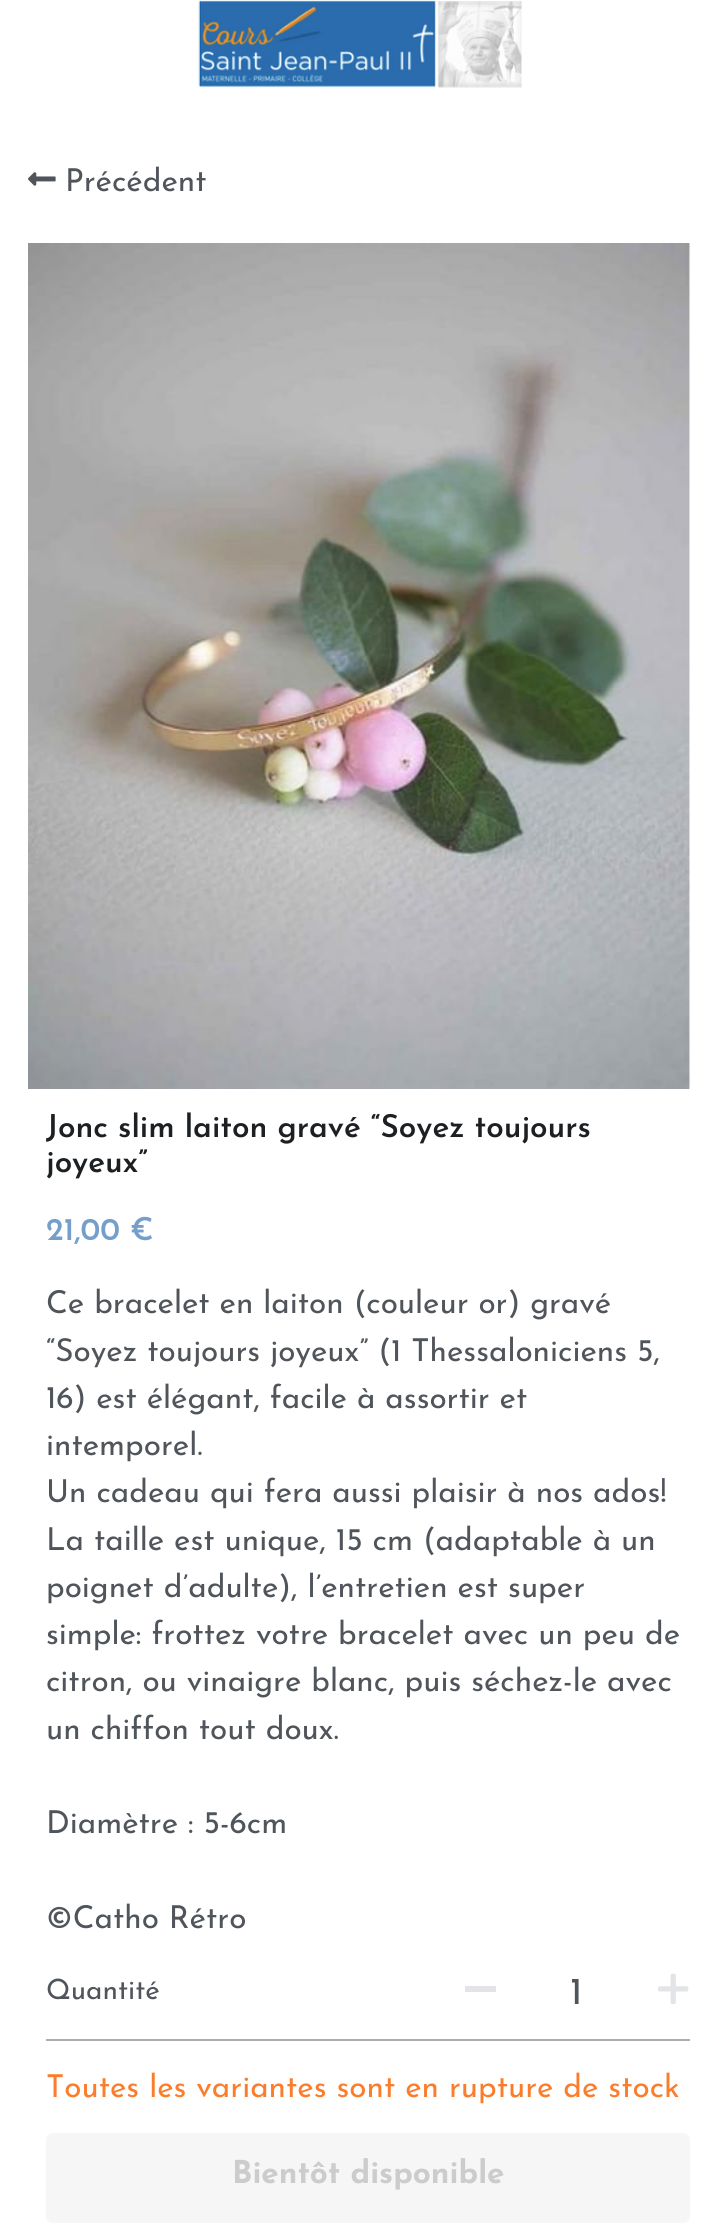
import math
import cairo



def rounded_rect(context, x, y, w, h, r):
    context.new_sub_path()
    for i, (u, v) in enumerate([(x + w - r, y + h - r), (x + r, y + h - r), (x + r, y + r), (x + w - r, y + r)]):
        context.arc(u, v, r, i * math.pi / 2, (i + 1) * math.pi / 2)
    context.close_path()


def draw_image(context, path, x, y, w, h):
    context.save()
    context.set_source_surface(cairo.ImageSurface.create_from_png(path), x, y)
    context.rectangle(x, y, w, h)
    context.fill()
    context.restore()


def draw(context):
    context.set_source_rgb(1, 1, 1)
    context.paint()
    draw_image(context, "images/1.png", 198, 0, 324, 88)
    draw_image(context, "images/2.png", 28, 172, 28, 14)
    draw_image(context, "images/3.png", 28, 243, 662, 846)
    context.set_source_rgb(169 / 255, 174 / 255, 178 / 255)
    context.rectangle(46, 2039, 644, 2)
    context.fill()
    context.set_source_rgb(226 / 255, 228 / 255, 231 / 255)
    context.rectangle(465, 1986, 31, 6)
    context.fill()
    draw_image(context, "images/4.png", 658, 1973, 31, 31)
    context.set_source_rgb(246 / 255, 246 / 255, 246 / 255)
    rounded_rect(context, 46, 2133, 644, 90, 7)
    context.fill()
    context.select_font_face("Josefin Sans")
    context.set_font_size(31.5)
    context.set_source_rgb(80 / 255, 85 / 255, 92 / 255)
    context.move_to(65, 191)
    context.show_text("Précédent")
    context.select_font_face("Josefin Sans SemiBold")
    context.set_source_rgb(29 / 255, 32 / 255, 35 / 255)
    context.move_to(46, 1137)
    context.show_text("Jonc slim laiton gravé “Soyez toujours")
    context.move_to(46, 1172)
    context.show_text("joyeux”")
    context.set_source_rgb(117 / 255, 159 / 255, 202 / 255)
    context.move_to(46, 1240)
    context.show_text("21,00 €")
    context.select_font_face("Josefin Sans")
    context.set_source_rgb(80 / 255, 85 / 255, 92 / 255)
    context.move_to(46, 1313)
    context.show_text("Ce bracelet en laiton (couleur or) gravé")
    context.move_to(46, 1361)
    context.show_text("“Soyez toujours joyeux” (1 Thessaloniciens 5,")
    context.move_to(46, 1408)
    context.show_text("16) est élégant, facile à assortir et")
    context.move_to(46, 1455)
    context.show_text("intemporel.")
    context.move_to(46, 1502)
    context.show_text("Un cadeau qui fera aussi plaisir à nos ados!")
    context.move_to(46, 1550)
    context.show_text("La taille est unique, 15 cm (adaptable à un")
    context.move_to(46, 1597)
    context.show_text("poignet d’adulte), l’entretien est super")
    context.move_to(46, 1644)
    context.show_text("simple: frottez votre bracelet avec un peu de")
    context.move_to(46, 1691)
    context.show_text("citron, ou vinaigre blanc, puis séchez-le avec")
    context.move_to(46, 1739)
    context.show_text("un chiffon tout doux.")
    context.move_to(46, 1833)
    context.show_text("Diamètre : 5-6cm")
    context.move_to(46, 1928)
    context.show_text("©Catho Rétro")
    context.set_font_size(28)
    context.move_to(46, 1999)
    context.show_text("Quantité")
    context.set_font_size(38)
    context.move_to(570, 2004)
    context.show_text("1")
    context.set_font_size(31.5)
    context.set_source_rgb(251 / 255, 125 / 255, 43 / 255)
    context.move_to(46, 2097)
    context.show_text("Toutes les variantes sont en rupture de stock")
    context.select_font_face("Josefin Sans", cairo.FontSlant.NORMAL, cairo.FontWeight.BOLD)
    context.set_source_rgb(204 / 255, 204 / 255, 204 / 255)
    context.move_to(232, 2183)
    context.show_text("Bientôt disponible")


surface = cairo.ImageSurface(cairo.Format.RGB24, 718, 2232)
context = cairo.Context(surface)
options = cairo.FontOptions()
options.set_hint_metrics(cairo.HintMetrics.OFF)
options.set_hint_style(cairo.HintStyle.NONE)
context.set_font_options(options)
context.set_miter_limit(4)
draw(context)
surface.write_to_png("out.png")
